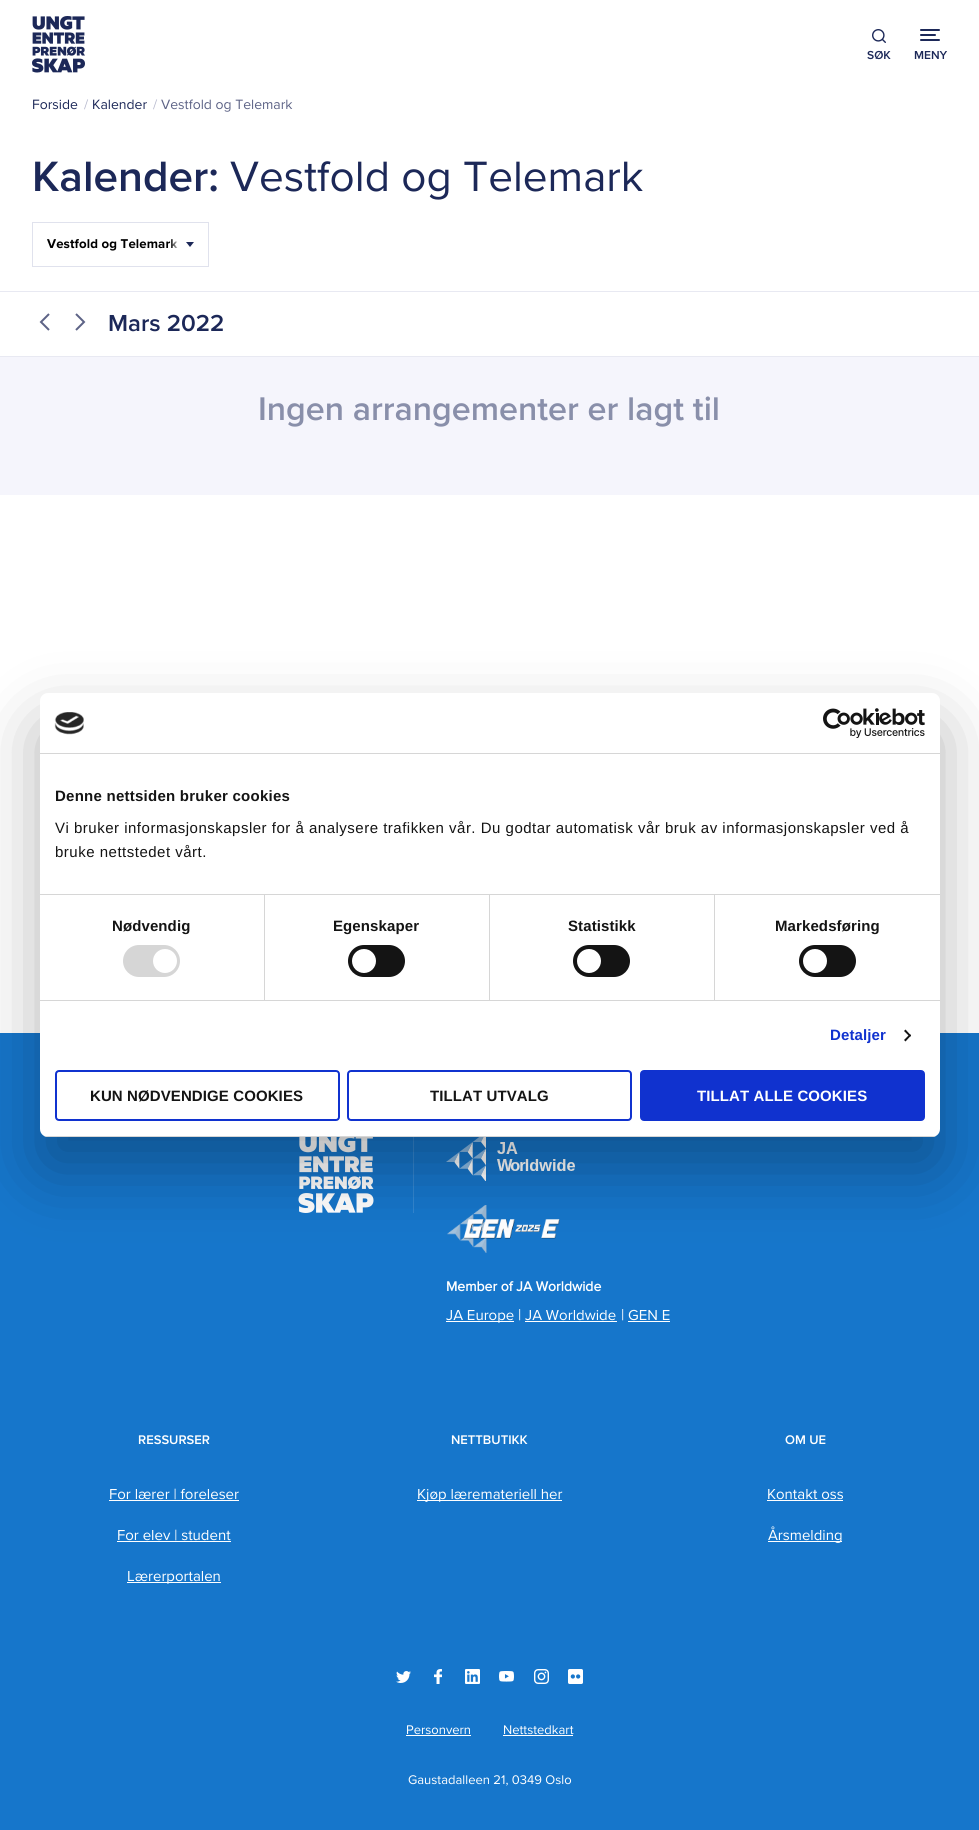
import math
import cairo



def draw_spaced(context, x, y, s, letter, word):
    context.move_to(x, y)
    for ch in s:
        context.show_text(ch)
        context.rel_move_to(letter + word * (ch == ' '), 0)


def rounded_rect(context, x, y, w, h, r):
    context.new_sub_path()
    for i, (u, v) in enumerate([(x + w - r, y + h - r), (x + r, y + h - r), (x + r, y + r), (x + w - r, y + r)]):
        context.arc(u, v, r, i * math.pi / 2, (i + 1) * math.pi / 2)
    context.close_path()


def draw_shadow(context, x, y, w, h, r, blur, alpha):
    context.push_group_with_content(cairo.Content.ALPHA)
    context.set_operator(cairo.Operator.SOURCE)
    for i in range(15, -16, -2):
        e = blur * i / 6
        if min(w, h) + 2 * e > 0:
            context.set_source_rgba(0, 0, 0, alpha * math.erfc((i - 1) / 8.5) / 2)
            rounded_rect(context, x - e, y - e, w + 2 * e, h + 2 * e, max(0, min(r + e + blur * .6, min(w, h) / 2 + e)))
            context.fill()
    context.mask(context.pop_group())


def draw_image(context, path, x, y, w, h):
    context.save()
    context.set_source_surface(cairo.ImageSurface.create_from_png(path), x, y)
    context.rectangle(x, y, w, h)
    context.fill()
    context.restore()


def draw(context):
    context.set_source_rgb(1, 1, 1)
    context.paint()
    draw_image(context, "images/1.png", 32, 16, 53, 57)
    draw_image(context, "images/2.png", 872, 29, 14, 14)
    context.set_source_rgb(28 / 255, 40 / 255, 88 / 255)
    rounded_rect(context, 920, 29, 20, 2, 1)
    context.fill()
    rounded_rect(context, 920, 34, 16, 2, 1)
    context.fill()
    rounded_rect(context, 920, 39, 20, 2, 1)
    context.fill()
    context.rectangle(32.5, 222.5, 176, 44)
    context.set_source_rgb(224 / 255, 226 / 255, 237 / 255)
    context.set_line_width(1)
    context.stroke()
    context.set_source_rgb(28 / 255, 40 / 255, 88 / 255)
    context.set_fill_rule(cairo.FillRule.EVEN_ODD)
    context.new_path()
    context.move_to(186, 242)
    context.line_to(194, 242)
    context.line_to(190, 247)
    context.close_path()
    context.fill()
    context.set_source_rgb(232 / 255, 233 / 255, 242 / 255)
    context.rectangle(0, 291, 979, 1)
    context.fill()
    context.rectangle(0, 356, 979, 1)
    context.fill()
    context.new_path()
    context.move_to(49, 330)
    context.line_to(41, 322)
    context.line_to(49, 314)
    context.move_to(76, 314)
    context.line_to(84, 322)
    context.line_to(76, 330)
    context.set_source_rgb(93 / 255, 99 / 255, 134 / 255)
    context.set_line_width(2)
    context.stroke()
    context.set_source_rgb(245 / 255, 245 / 255, 252 / 255)
    context.rectangle(0, 357, 979, 138)
    context.fill()
    context.set_source_rgb(22 / 255, 118 / 255, 203 / 255)
    context.rectangle(0, 1033, 979, 797)
    context.fill()
    draw_image(context, "images/5.png", 298, 1137, 76, 76)
    context.set_source_rgb(50 / 255, 134 / 255, 209 / 255)
    context.rectangle(413, 1133, 1, 80)
    context.fill()
    draw_image(context, "images/6.png", 446, 1137, 129, 44)
    draw_image(context, "images/7.png", 447, 1205, 113, 48)
    context.set_source_rgb(0, 0, 0)
    draw_shadow(context, 40, 725, 900, 444, 8, 34, 0.3)
    context.set_source_rgb(1, 1, 1)
    rounded_rect(context, 40, 693, 900, 444, 8)
    context.fill()
    context.set_source_rgb(214 / 255, 214 / 255, 214 / 255)
    context.rectangle(40, 753, 900, 1)
    context.fill()
    draw_image(context, "images/3.png", 54, 712, 30, 23)
    draw_image(context, "images/4.png", 823, 708, 102, 30)
    context.rectangle(40, 894, 900, 1)
    context.fill()
    context.rectangle(40, 1000, 900, 1)
    context.fill()
    context.rectangle(264, 895, 1, 105)
    context.fill()
    rounded_rect(context, 123, 945, 57, 32, 16)
    context.fill()
    context.set_source_rgb(1, 1, 1)
    context.arc(165, 961, 12, 0, 2 * math.pi)
    context.fill()
    context.set_source_rgb(214 / 255, 214 / 255, 214 / 255)
    context.rectangle(489, 895, 1, 105)
    context.fill()
    context.set_source_rgb(20 / 255, 20 / 255, 20 / 255)
    rounded_rect(context, 348, 945, 57, 32, 16)
    context.fill()
    context.set_source_rgb(1, 1, 1)
    context.arc(364, 961, 12, 0, 2 * math.pi)
    context.fill()
    context.set_source_rgb(214 / 255, 214 / 255, 214 / 255)
    context.rectangle(714, 895, 1, 105)
    context.fill()
    context.set_source_rgb(20 / 255, 20 / 255, 20 / 255)
    rounded_rect(context, 573, 945, 57, 32, 16)
    context.fill()
    context.set_source_rgb(1, 1, 1)
    context.arc(589, 961, 12, 0, 2 * math.pi)
    context.fill()
    context.set_source_rgb(20 / 255, 20 / 255, 20 / 255)
    rounded_rect(context, 799, 945, 57, 32, 16)
    context.fill()
    context.set_source_rgb(1, 1, 1)
    context.arc(815, 961, 12, 0, 2 * math.pi)
    context.fill()
    context.set_source_rgb(20 / 255, 20 / 255, 20 / 255)
    context.set_fill_rule(cairo.FillRule.WINDING)
    context.new_path()
    context.move_to(905.5, 1029.5)
    context.line_to(911, 1035.5)
    context.line_to(910, 1037)
    context.line_to(904, 1031)
    context.close_path()
    context.fill()
    context.new_path()
    context.move_to(910, 1034)
    context.line_to(911, 1035.5)
    context.line_to(905.5, 1041.5)
    context.line_to(904, 1040)
    context.close_path()
    context.fill()
    context.save()
    rounded_rect(context, 40, 693, 900, 444, 8)
    context.clip()
    context.set_source_rgb(214 / 255, 214 / 255, 214 / 255)
    context.rectangle(40, 1136, 900, 1)
    context.fill()
    context.restore()
    rounded_rect(context, 56, 1071, 283, 49, 3)
    context.set_source_rgb(16 / 255, 50 / 255, 207 / 255)
    context.stroke()
    rounded_rect(context, 348, 1071, 283, 49, 3)
    context.stroke()
    rounded_rect(context, 641, 1071, 283, 49, 3)
    context.fill_preserve()
    context.stroke()
    context.set_source_rgb(1, 1, 1)
    context.rectangle(446, 1321, 68, 1)
    context.fill()
    context.rectangle(525, 1321, 92, 1)
    context.fill()
    context.rectangle(628, 1321, 42, 1)
    context.fill()
    context.rectangle(109, 1500, 130, 1)
    context.fill()
    context.rectangle(117, 1541, 114, 1)
    context.fill()
    context.rectangle(127, 1582, 94, 1)
    context.fill()
    context.rectangle(417, 1500, 145, 1)
    context.fill()
    context.rectangle(767, 1500, 76, 1)
    context.fill()
    context.rectangle(768, 1541, 74, 1)
    context.fill()
    draw_image(context, "images/8.png", 396, 1671, 15, 12)
    draw_image(context, "images/9.png", 434, 1669, 8, 15)
    draw_image(context, "images/10.png", 465, 1669, 15, 15)
    draw_image(context, "images/11.png", 499, 1671, 15, 11)
    draw_image(context, "images/12.png", 534, 1669, 15, 15)
    draw_image(context, "images/13.png", 568, 1669, 15, 15)
    context.rectangle(406, 1735, 65, 1)
    context.fill()
    context.rectangle(503, 1735, 70, 1)
    context.fill()
    context.select_font_face("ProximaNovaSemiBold")
    context.set_font_size(12)
    context.set_source_rgb(28 / 255, 40 / 255, 88 / 255)
    context.move_to(867, 59)
    context.show_text("SØK")
    context.move_to(914, 59)
    context.show_text("MENY")
    context.select_font_face("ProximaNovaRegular")
    context.set_font_size(14)
    context.move_to(32, 109)
    context.show_text("Forside")
    context.set_source_rgb(183 / 255, 185 / 255, 206 / 255)
    context.move_to(84, 109)
    context.show_text("/")
    context.set_source_rgb(28 / 255, 40 / 255, 88 / 255)
    context.move_to(92, 109)
    context.show_text("Kalender")
    context.set_source_rgb(183 / 255, 185 / 255, 206 / 255)
    context.move_to(153, 109)
    context.show_text("/")
    context.set_source_rgb(93 / 255, 99 / 255, 134 / 255)
    context.move_to(161, 109)
    context.show_text("Vestfold og Telemark")
    context.select_font_face("ProximaNovaSemiBold")
    context.set_font_size(44)
    context.set_source_rgb(28 / 255, 40 / 255, 88 / 255)
    context.move_to(32, 191)
    context.show_text("Kalender:")
    context.select_font_face("ProximaNovaRegular")
    context.move_to(230, 191)
    context.show_text("Vestfold og Telemark")
    context.select_font_face("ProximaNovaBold")
    context.set_font_size(13.25)
    context.set_source_rgb(0, 0, 0)
    draw_spaced(context, 47, 248, "Vestfold og Telemark", 0.1, 0)
    gradient = cairo.LinearGradient(170, 245, 180, 245)
    gradient.add_color_stop_rgba(0, 1, 1, 1, 0)
    gradient.add_color_stop_rgba(1, 1, 1, 1, 1)
    context.set_source(gradient)
    context.rectangle(170, 239, 9, 9)
    context.fill()
    context.select_font_face("ProximaNovaSemiBold")
    context.set_font_size(24)
    context.set_source_rgb(28 / 255, 40 / 255, 88 / 255)
    context.move_to(108, 331)
    context.show_text("Mars 2022")
    context.set_font_size(34)
    context.set_source_rgb(137 / 255, 143 / 255, 170 / 255)
    context.move_to(258, 420)
    context.show_text("Ingen arrangementer er lagt til")
    context.select_font_face("Liberation Sans", cairo.FontSlant.NORMAL, cairo.FontWeight.BOLD)
    context.set_font_size(15)
    context.set_source_rgb(20 / 255, 20 / 255, 20 / 255)
    draw_spaced(context, 55, 801, "Denne nettsiden bruker cookies", 0.25, 0)
    context.select_font_face("Liberation Sans")
    draw_spaced(context, 55, 833, "Vi bruker informasjonskapsler for å analysere trafikken vår. Du godtar automatisk vår bruk av informasjonskapsler ved å", 0.5, 0)
    draw_spaced(context, 55, 857, "bruke nettstedet vårt.", 0.5, 0)
    context.select_font_face("Liberation Sans", cairo.FontSlant.NORMAL, cairo.FontWeight.BOLD)
    draw_spaced(context, 112, 931, "Nødvendig", 0.1, 0)
    draw_spaced(context, 333, 931, "Egenskaper", 0.1, 0)
    draw_spaced(context, 568, 931, "Statistikk", 0.1, 0)
    draw_spaced(context, 775, 931, "Markedsføring", 0.1, 0)
    context.set_source_rgb(16 / 255, 50 / 255, 207 / 255)
    draw_spaced(context, 830, 1040, "Detaljer", 0.1, 0)
    context.set_source_rgb(20 / 255, 20 / 255, 20 / 255)
    draw_spaced(context, 90, 1101, "KUN NØDVENDIGE COOKIES", 0.1, 0)
    draw_spaced(context, 430, 1101, "TILLAT UTVALG", 0.1, 0)
    context.set_source_rgb(1, 1, 1)
    draw_spaced(context, 697, 1101, "TILLAT ALLE COOKIES", 0.1, 0)
    context.select_font_face("ProximaNovaRegular", cairo.FontSlant.NORMAL, cairo.FontWeight.BOLD)
    context.set_font_size(14)
    context.move_to(446, 1291)
    context.show_text("Member of JA Worldwide")
    context.select_font_face("ProximaNovaRegular")
    context.set_font_size(15)
    context.move_to(446, 1320)
    context.show_text("JA Europe")
    context.set_font_size(16)
    context.move_to(518, 1320)
    context.show_text("|")
    context.set_font_size(15)
    context.move_to(525, 1320)
    context.show_text("JA Worldwide")
    context.set_font_size(16)
    context.move_to(621, 1320)
    context.show_text("|")
    context.set_font_size(15)
    context.move_to(628, 1320)
    context.show_text("GEN E")
    context.select_font_face("ProximaNovaSemiBold")
    context.set_font_size(13)
    context.move_to(138, 1444)
    context.show_text("RESSURSER")
    context.select_font_face("ProximaNovaRegular")
    context.set_font_size(15)
    context.move_to(109, 1499)
    context.show_text("For lærer | foreleser")
    context.move_to(117, 1540)
    context.show_text("For elev | student")
    context.move_to(127, 1581)
    context.show_text("Lærerportalen")
    context.select_font_face("ProximaNovaSemiBold")
    context.set_font_size(13)
    context.move_to(451, 1444)
    context.show_text("NETTBUTIKK")
    context.select_font_face("ProximaNovaRegular")
    context.set_font_size(15)
    context.move_to(417, 1499)
    context.show_text("Kjøp læremateriell her")
    context.select_font_face("ProximaNovaSemiBold")
    context.set_font_size(13)
    context.move_to(785, 1444)
    context.show_text("OM UE")
    context.select_font_face("ProximaNovaRegular")
    context.set_font_size(15)
    context.move_to(767, 1499)
    context.show_text("Kontakt oss")
    context.move_to(768, 1540)
    context.show_text("Årsmelding")
    context.set_font_size(13)
    context.move_to(406, 1734)
    context.show_text("Personvern")
    context.move_to(503, 1734)
    context.show_text("Nettstedkart")
    context.move_to(408, 1784)
    context.show_text("Gaustadalleen 21, 0349 Oslo")


surface = cairo.ImageSurface(cairo.Format.RGB24, 979, 1830)
context = cairo.Context(surface)
options = cairo.FontOptions()
options.set_hint_metrics(cairo.HintMetrics.OFF)
options.set_hint_style(cairo.HintStyle.NONE)
context.set_font_options(options)
context.set_miter_limit(4)
draw(context)
surface.write_to_png("out.png")
